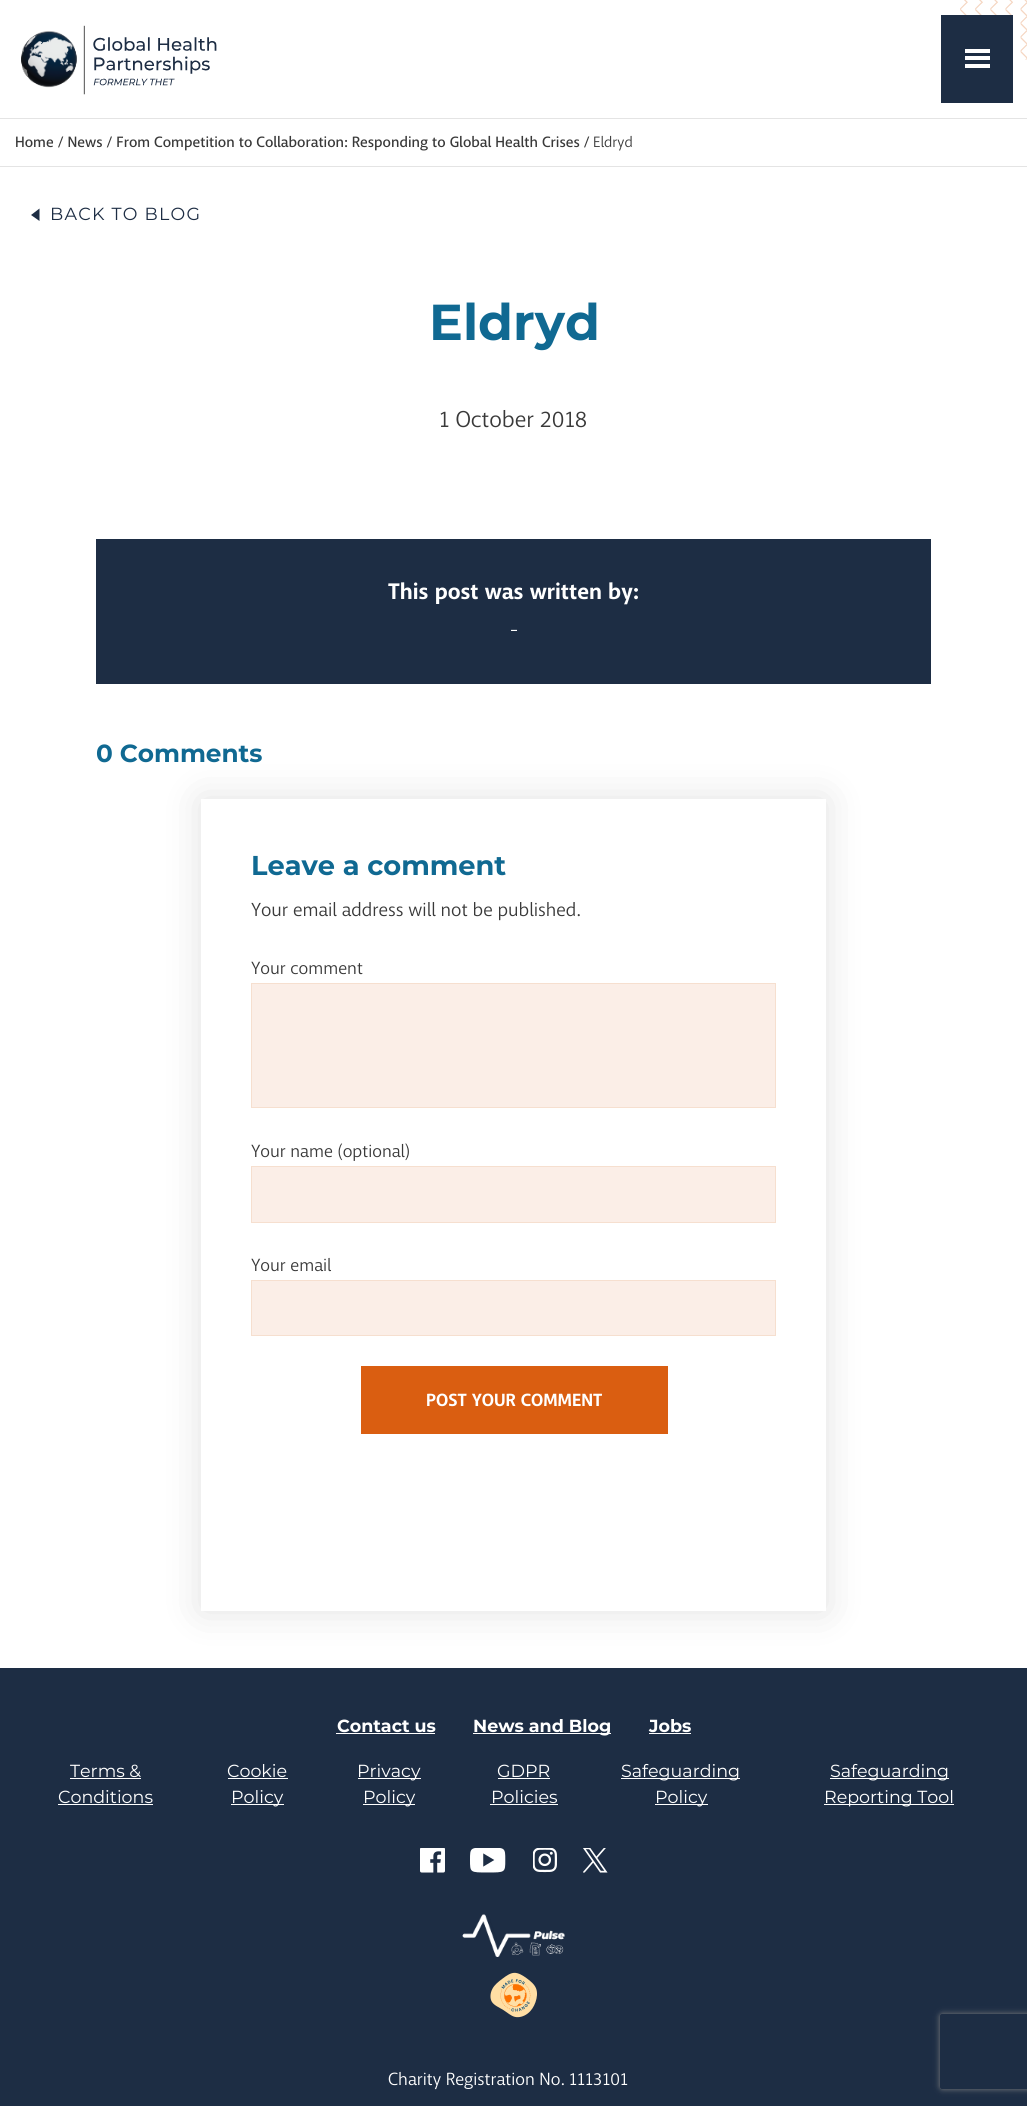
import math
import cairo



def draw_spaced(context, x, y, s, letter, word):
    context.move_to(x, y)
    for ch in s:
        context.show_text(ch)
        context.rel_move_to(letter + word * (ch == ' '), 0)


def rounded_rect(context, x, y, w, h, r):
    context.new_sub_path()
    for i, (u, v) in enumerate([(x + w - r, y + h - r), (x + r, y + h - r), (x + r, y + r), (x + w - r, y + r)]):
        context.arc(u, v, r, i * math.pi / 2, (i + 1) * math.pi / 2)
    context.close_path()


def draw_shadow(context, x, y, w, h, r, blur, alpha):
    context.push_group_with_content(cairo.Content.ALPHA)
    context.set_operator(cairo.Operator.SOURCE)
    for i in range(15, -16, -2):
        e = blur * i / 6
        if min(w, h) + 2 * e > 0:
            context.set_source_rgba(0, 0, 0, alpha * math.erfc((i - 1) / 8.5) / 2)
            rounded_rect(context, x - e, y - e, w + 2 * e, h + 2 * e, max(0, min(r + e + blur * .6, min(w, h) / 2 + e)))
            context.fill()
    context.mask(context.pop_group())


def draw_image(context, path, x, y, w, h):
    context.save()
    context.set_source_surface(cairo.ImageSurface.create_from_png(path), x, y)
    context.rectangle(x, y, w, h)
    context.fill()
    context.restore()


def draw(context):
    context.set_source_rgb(1, 1, 1)
    context.paint()
    draw_image(context, "images/1.png", 960, 0, 67, 60)
    draw_image(context, "images/2.png", 21, 25, 196, 70)
    context.set_source_rgb(29 / 255, 45 / 255, 68 / 255)
    context.rectangle(941, 15, 72, 88)
    context.fill()
    context.set_source_rgb(1, 1, 1)
    context.rectangle(965, 56, 25, 4)
    context.fill()
    context.rectangle(965, 49, 25, 4)
    context.fill()
    context.rectangle(965, 64, 25, 4)
    context.fill()
    context.set_source_rgb(228 / 255, 228 / 255, 228 / 255)
    context.rectangle(0, 118, 1027, 1)
    context.fill()
    context.rectangle(0, 166, 1027, 1)
    context.fill()
    context.set_source_rgb(29 / 255, 45 / 255, 68 / 255)
    context.set_fill_rule(cairo.FillRule.EVEN_ODD)
    context.new_path()
    context.move_to(39.5, 208.5)
    context.line_to(31, 215)
    context.line_to(39.5, 221)
    context.fill()
    context.rectangle(96, 539, 835, 145)
    context.fill()
    context.save()
    context.new_path()
    context.move_to(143, 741)
    context.line_to(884, 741)
    context.line_to(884, 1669)
    context.line_to(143, 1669)
    context.close_path()
    context.move_to(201, 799)
    context.line_to(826, 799)
    context.line_to(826, 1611)
    context.line_to(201, 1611)
    context.close_path()
    context.clip()
    context.set_source_rgb(57 / 255, 57 / 255, 57 / 255)
    draw_shadow(context, 201, 799, 625, 812, 0, 19, 0.15)
    context.restore()
    context.set_source_rgb(251 / 255, 238 / 255, 231 / 255)
    context.rectangle(251.5, 983.5, 524, 124)
    context.fill_preserve()
    context.set_source_rgb(246 / 255, 223 / 255, 207 / 255)
    context.set_line_width(1)
    context.stroke()
    context.set_source_rgb(251 / 255, 238 / 255, 231 / 255)
    context.rectangle(251.5, 1166.5, 524, 56)
    context.fill_preserve()
    context.set_source_rgb(246 / 255, 223 / 255, 207 / 255)
    context.stroke()
    context.set_source_rgb(251 / 255, 238 / 255, 231 / 255)
    context.rectangle(251.5, 1280.5, 524, 55)
    context.fill_preserve()
    context.set_source_rgb(246 / 255, 223 / 255, 207 / 255)
    context.stroke()
    context.set_source_rgb(218 / 255, 94 / 255, 17 / 255)
    context.rectangle(361, 1366, 307, 68)
    context.fill()
    context.set_source_rgb(29 / 255, 45 / 255, 68 / 255)
    context.rectangle(0, 1668, 1027, 438)
    context.fill()
    context.set_source_rgb(1, 1, 1)
    context.rectangle(336, 1733, 99, 1)
    context.fill()
    context.rectangle(473, 1733, 138, 1)
    context.fill()
    context.rectangle(649, 1733, 42, 1)
    context.fill()
    context.rectangle(70, 1778, 71, 1)
    context.fill()
    context.rectangle(58, 1804, 95, 1)
    context.fill()
    context.rectangle(228, 1778, 60, 1)
    context.fill()
    context.rectangle(231, 1804, 53, 1)
    context.fill()
    context.rectangle(358, 1778, 63, 1)
    context.fill()
    context.rectangle(363, 1804, 52, 1)
    context.fill()
    context.rectangle(498, 1778, 52, 1)
    context.fill()
    context.rectangle(490, 1804, 68, 1)
    context.fill()
    context.rectangle(621, 1778, 119, 1)
    context.fill()
    context.rectangle(655, 1804, 53, 1)
    context.fill()
    context.rectangle(830, 1778, 119, 1)
    context.fill()
    context.rectangle(824, 1804, 130, 1)
    context.fill()
    draw_image(context, "images/3.png", 420, 1848, 25, 25)
    draw_image(context, "images/4.png", 470, 1848, 36, 25)
    draw_image(context, "images/5.png", 533, 1848, 24, 25)
    draw_image(context, "images/6.png", 583, 1848, 25, 25)
    draw_image(context, "images/7.png", 462, 1914, 103, 43)
    draw_image(context, "images/8.png", 490, 1972, 47, 46)
    context.save()
    context.new_path()
    context.move_to(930, 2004)
    context.line_to(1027, 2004)
    context.line_to(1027, 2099)
    context.line_to(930, 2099)
    context.close_path()
    context.move_to(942.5, 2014)
    context.line_to(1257.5, 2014)
    context.curve_to(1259, 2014, 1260, 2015, 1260, 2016.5)
    context.line_to(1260, 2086.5)
    context.curve_to(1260, 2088, 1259, 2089, 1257.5, 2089)
    context.line_to(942.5, 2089)
    context.curve_to(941, 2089, 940, 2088, 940, 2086.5)
    context.line_to(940, 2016.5)
    context.curve_to(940, 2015, 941, 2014, 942.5, 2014)
    context.close_path()
    context.clip()
    context.set_source_rgb(128 / 255, 128 / 255, 128 / 255)
    draw_shadow(context, 940, 2014, 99, 75, 2.5, 3, 1)
    context.restore()
    context.select_font_face("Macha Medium")
    context.set_font_size(14.85)
    context.set_source_rgb(57 / 255, 57 / 255, 57 / 255)
    context.move_to(15, 147)
    context.show_text("Home / News / From Competition to Collaboration: Responding to Global Health Crises /")
    context.select_font_face("Macha")
    context.move_to(593, 147)
    context.show_text("Eldryd")
    context.select_font_face("Montserrat")
    context.set_font_size(17.5)
    context.set_source_rgb(29 / 255, 45 / 255, 68 / 255)
    draw_spaced(context, 50, 220, "BACK TO BLOG", 1.25, 0)
    context.select_font_face("Montserrat", cairo.FontSlant.NORMAL, cairo.FontWeight.BOLD)
    context.set_font_size(50.5)
    context.set_source_rgb(16 / 255, 105 / 255, 146 / 255)
    context.move_to(429, 340)
    context.show_text("Eldryd")
    context.select_font_face("Macha")
    context.set_font_size(22.75)
    context.set_source_rgb(57 / 255, 57 / 255, 57 / 255)
    context.move_to(439, 427)
    context.show_text("1 October 2018")
    context.select_font_face("Macha", cairo.FontSlant.NORMAL, cairo.FontWeight.BOLD)
    context.set_font_size(22.3)
    context.set_source_rgb(1, 1, 1)
    context.move_to(388, 599)
    context.show_text("This post was written by:")
    context.select_font_face("Macha")
    context.set_font_size(20)
    context.move_to(510, 636)
    context.show_text("-")
    context.select_font_face("Montserrat", cairo.FontSlant.NORMAL, cairo.FontWeight.BOLD)
    context.set_font_size(24.75)
    context.set_source_rgb(16 / 255, 105 / 255, 146 / 255)
    context.move_to(96, 762)
    context.show_text("0 Comments")
    context.set_font_size(27.25)
    context.move_to(251, 875)
    context.show_text("Leave a comment")
    context.select_font_face("Macha")
    context.set_font_size(18.7)
    context.set_source_rgb(57 / 255, 57 / 255, 57 / 255)
    context.move_to(251, 916)
    context.show_text("Your email address will not be published.")
    context.set_font_size(17.5)
    context.move_to(251, 974)
    context.show_text("Your comment")
    context.move_to(251, 1157)
    context.show_text("Your name (optional)")
    context.move_to(251, 1271)
    context.show_text("Your email")
    context.select_font_face("Macha", cairo.FontSlant.NORMAL, cairo.FontWeight.BOLD)
    context.set_source_rgb(1, 1, 1)
    context.move_to(426, 1406)
    context.show_text("POST YOUR COMMENT")
    context.select_font_face("Montserrat", cairo.FontSlant.NORMAL, cairo.FontWeight.BOLD)
    context.move_to(337, 1732)
    context.show_text("Contact us")
    context.move_to(473, 1732)
    context.show_text("News and Blog")
    context.move_to(649, 1732)
    context.show_text("Jobs")
    context.select_font_face("Montserrat")
    context.move_to(70, 1777)
    context.show_text("Terms &")
    context.move_to(58, 1803)
    context.show_text("Conditions")
    context.move_to(227, 1777)
    context.show_text("Cookie")
    context.move_to(231, 1803)
    context.show_text("Policy")
    context.move_to(357, 1777)
    context.show_text("Privacy")
    context.move_to(363, 1803)
    context.show_text("Policy")
    context.move_to(497, 1777)
    context.show_text("GDPR")
    context.move_to(491, 1803)
    context.show_text("Policies")
    context.move_to(621, 1777)
    context.show_text("Safeguarding")
    context.move_to(655, 1803)
    context.show_text("Policy")
    context.move_to(830, 1777)
    context.show_text("Safeguarding")
    context.move_to(824, 1803)
    context.show_text("Reporting Tool")
    context.select_font_face("Macha")
    context.move_to(388, 2085)
    context.show_text("Charity Registration No. 1113101")


surface = cairo.ImageSurface(cairo.Format.RGB24, 1027, 2106)
context = cairo.Context(surface)
options = cairo.FontOptions()
options.set_hint_metrics(cairo.HintMetrics.OFF)
options.set_hint_style(cairo.HintStyle.NONE)
context.set_font_options(options)
context.set_miter_limit(4)
draw(context)
surface.write_to_png("out.png")
